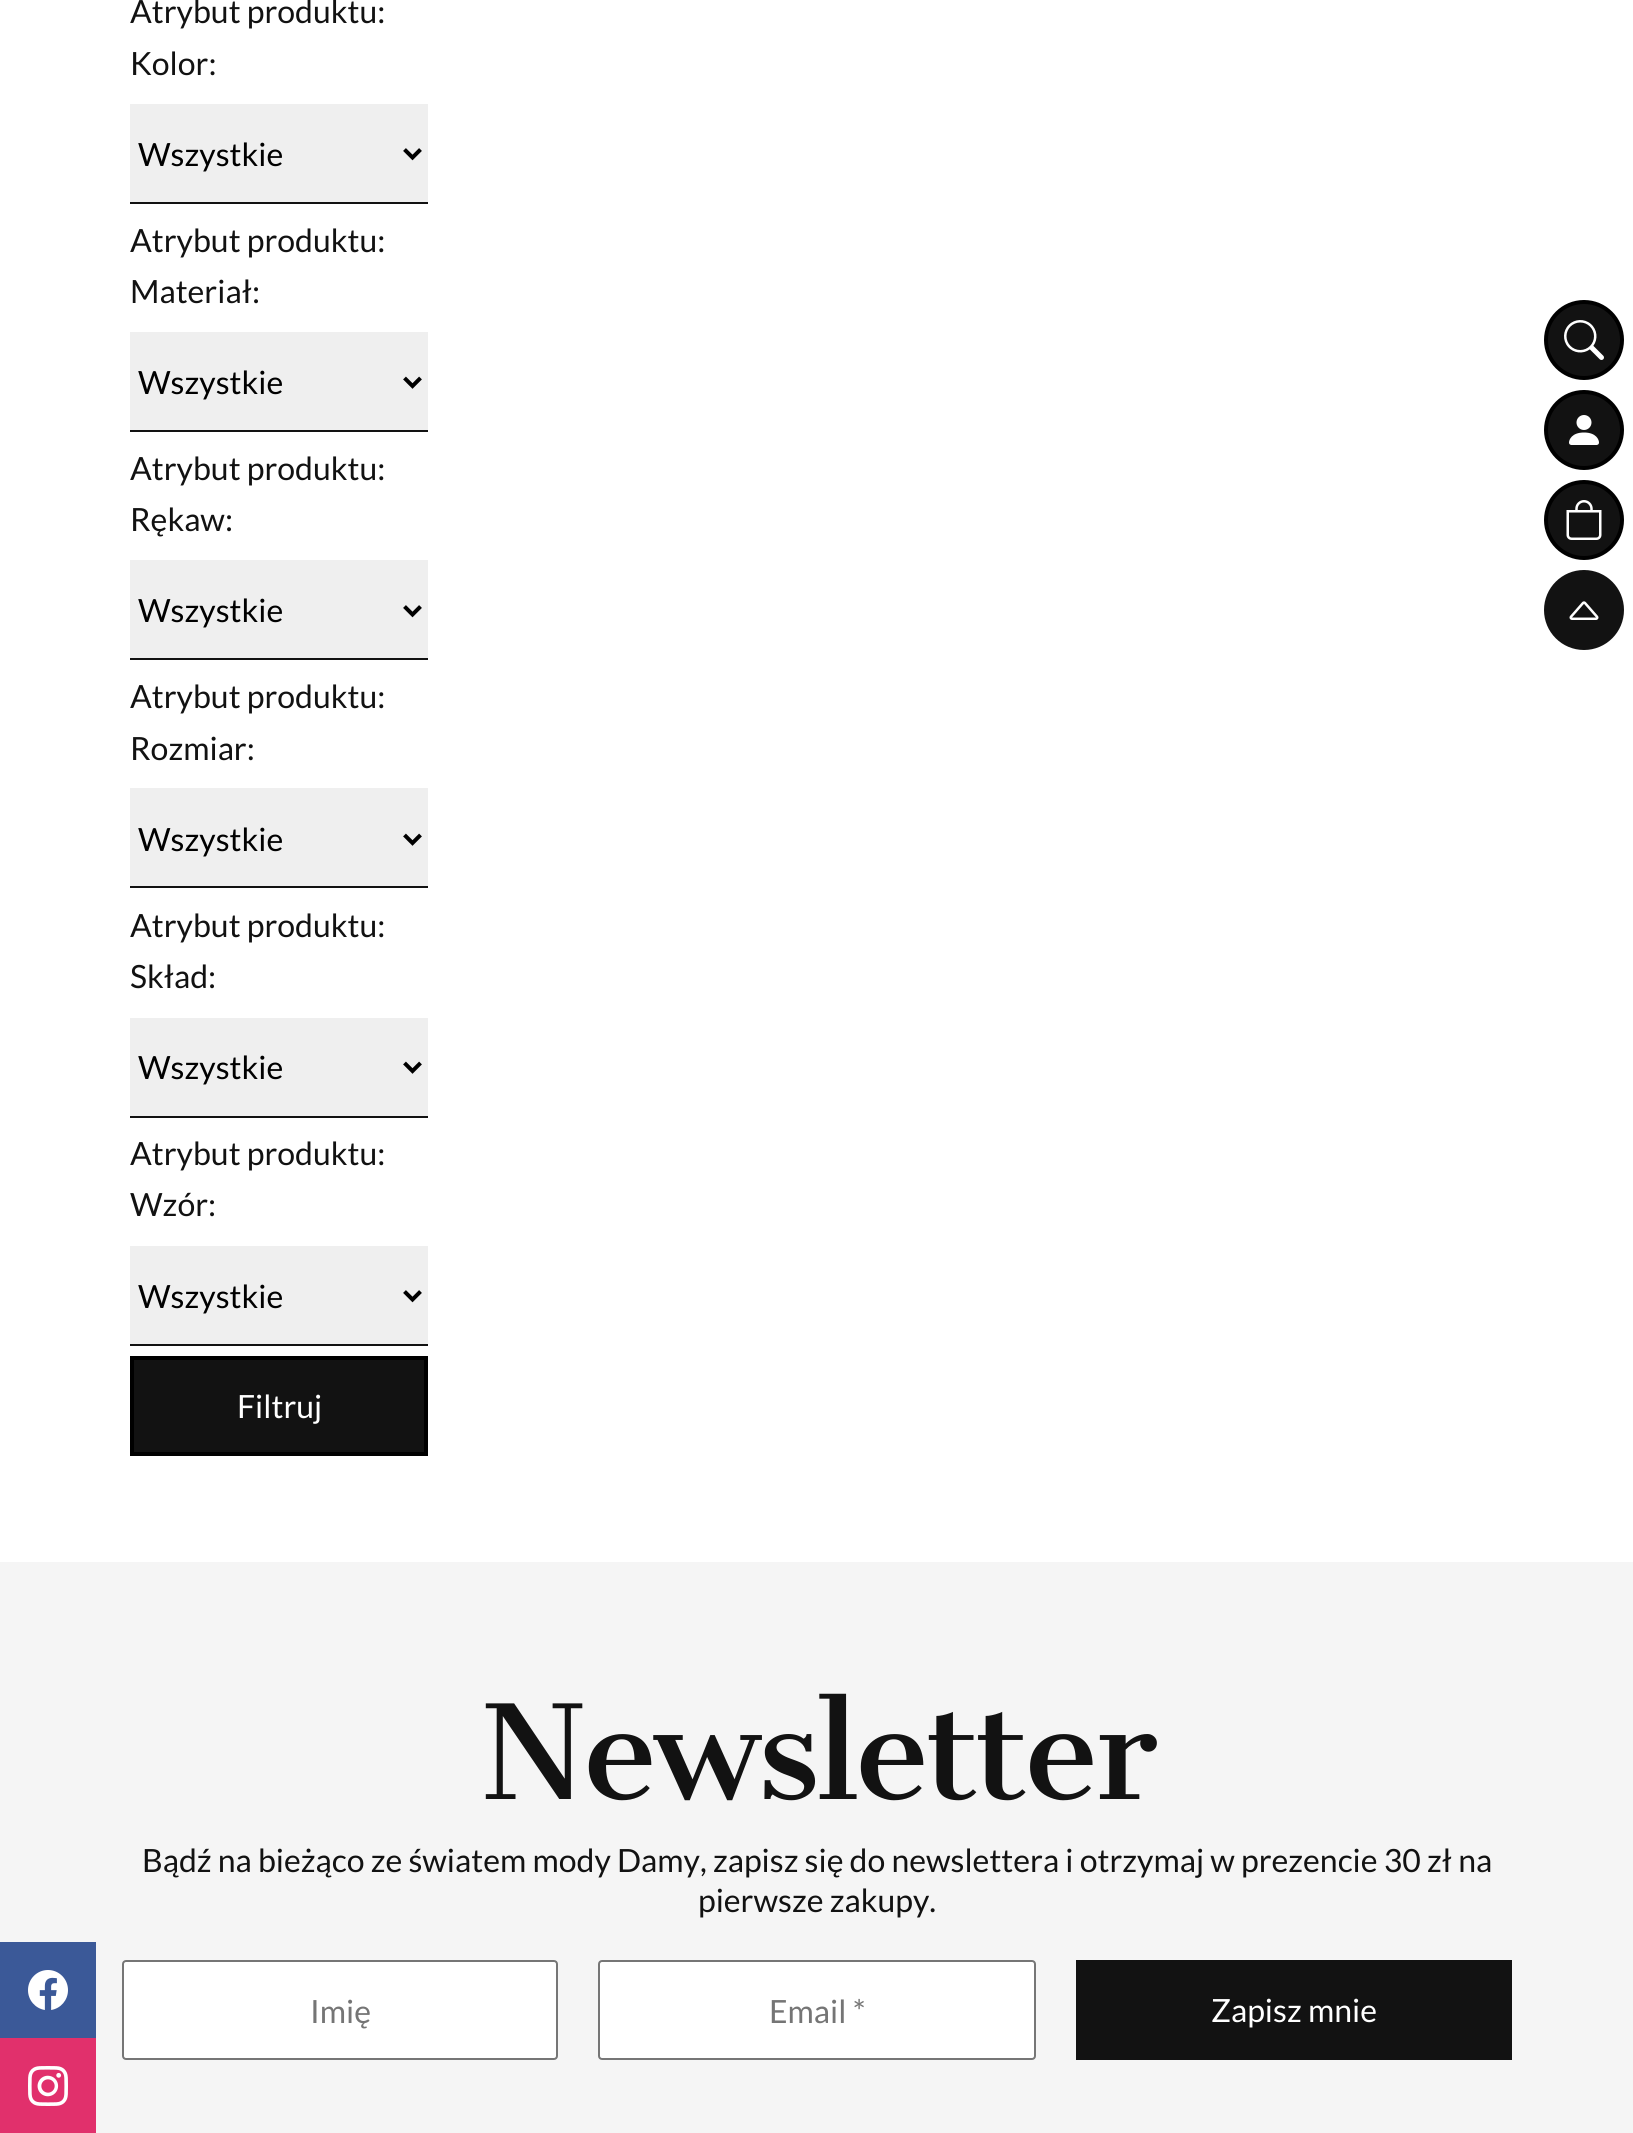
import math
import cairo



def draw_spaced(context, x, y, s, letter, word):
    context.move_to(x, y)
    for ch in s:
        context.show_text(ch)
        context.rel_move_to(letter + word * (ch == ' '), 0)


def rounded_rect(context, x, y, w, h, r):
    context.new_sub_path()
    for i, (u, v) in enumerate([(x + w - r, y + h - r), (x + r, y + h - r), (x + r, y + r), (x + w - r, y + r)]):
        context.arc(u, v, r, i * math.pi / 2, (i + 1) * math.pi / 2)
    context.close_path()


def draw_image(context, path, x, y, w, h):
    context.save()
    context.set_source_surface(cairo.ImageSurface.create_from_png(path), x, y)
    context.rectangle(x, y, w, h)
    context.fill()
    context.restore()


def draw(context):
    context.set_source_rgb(1, 1, 1)
    context.paint()
    context.set_source_rgb(239 / 255, 239 / 255, 239 / 255)
    context.rectangle(130, 104, 298, 98)
    context.fill()
    context.set_source_rgb(18 / 255, 18 / 255, 18 / 255)
    context.rectangle(130, 202, 298, 2)
    context.fill()
    context.new_path()
    context.move_to(404.5, 149.5)
    context.line_to(412.5, 157.5)
    context.line_to(420.5, 149.5)
    context.set_source_rgb(0, 0, 0)
    context.set_line_width(4)
    context.stroke()
    context.set_source_rgb(239 / 255, 239 / 255, 239 / 255)
    context.rectangle(130, 332, 298, 98)
    context.fill()
    context.set_source_rgb(18 / 255, 18 / 255, 18 / 255)
    context.rectangle(130, 430, 298, 2)
    context.fill()
    context.new_path()
    context.move_to(404.5, 378)
    context.line_to(412.5, 386)
    context.line_to(420.5, 378)
    context.set_source_rgb(0, 0, 0)
    context.stroke()
    context.set_source_rgb(239 / 255, 239 / 255, 239 / 255)
    context.rectangle(130, 560, 298, 98)
    context.fill()
    context.set_source_rgb(18 / 255, 18 / 255, 18 / 255)
    context.rectangle(130, 658, 298, 2)
    context.fill()
    context.new_path()
    context.move_to(404.5, 606.5)
    context.line_to(412.5, 614.5)
    context.line_to(420.5, 606.5)
    context.set_source_rgb(0, 0, 0)
    context.stroke()
    context.set_source_rgb(239 / 255, 239 / 255, 239 / 255)
    context.rectangle(130, 788, 298, 98)
    context.fill()
    context.set_source_rgb(18 / 255, 18 / 255, 18 / 255)
    context.rectangle(130, 886, 298, 2)
    context.fill()
    context.new_path()
    context.move_to(404.5, 835)
    context.line_to(412.5, 843)
    context.line_to(420.5, 835)
    context.set_source_rgb(0, 0, 0)
    context.stroke()
    context.set_source_rgb(239 / 255, 239 / 255, 239 / 255)
    context.rectangle(130, 1018, 298, 98)
    context.fill()
    context.set_source_rgb(18 / 255, 18 / 255, 18 / 255)
    context.rectangle(130, 1116, 298, 2)
    context.fill()
    context.new_path()
    context.move_to(404.5, 1063)
    context.line_to(412.5, 1071)
    context.line_to(420.5, 1063)
    context.set_source_rgb(0, 0, 0)
    context.stroke()
    context.set_source_rgb(239 / 255, 239 / 255, 239 / 255)
    context.rectangle(130, 1246, 298, 98)
    context.fill()
    context.set_source_rgb(18 / 255, 18 / 255, 18 / 255)
    context.rectangle(130, 1344, 298, 2)
    context.fill()
    context.new_path()
    context.move_to(404.5, 1291.5)
    context.line_to(412.5, 1299.5)
    context.line_to(420.5, 1291.5)
    context.set_source_rgb(0, 0, 0)
    context.stroke()
    context.set_source_rgb(18 / 255, 18 / 255, 18 / 255)
    context.rectangle(132, 1358, 294, 96)
    context.fill_preserve()
    context.set_source_rgb(0, 0, 0)
    context.stroke()
    context.set_source_rgb(18 / 255, 18 / 255, 18 / 255)
    context.arc(1584, 340, 38, 0, 2 * math.pi)
    context.fill_preserve()
    context.set_source_rgb(0, 0, 0)
    context.stroke()
    draw_image(context, "images/1.png", 1564, 320, 40, 40)
    context.set_source_rgb(18 / 255, 18 / 255, 18 / 255)
    context.arc(1584, 430, 38, 0, 2 * math.pi)
    context.fill_preserve()
    context.set_source_rgb(0, 0, 0)
    context.stroke()
    draw_image(context, "images/2.png", 1569, 415, 30, 30)
    context.set_source_rgb(18 / 255, 18 / 255, 18 / 255)
    context.arc(1584, 520, 38, 0, 2 * math.pi)
    context.fill_preserve()
    context.set_source_rgb(0, 0, 0)
    context.stroke()
    draw_image(context, "images/3.png", 1566, 500, 36, 40)
    context.set_source_rgb(18 / 255, 18 / 255, 18 / 255)
    context.arc(1584, 610, 40, 0, 2 * math.pi)
    context.fill()
    draw_image(context, "images/4.png", 1569, 601, 30, 19)
    context.set_source_rgb(245 / 255, 245 / 255, 245 / 255)
    context.rectangle(0, 1562, 1633, 571)
    context.fill()
    context.set_source_rgb(59 / 255, 89 / 255, 152 / 255)
    context.rectangle(0, 1942, 96, 96)
    context.fill()
    draw_image(context, "images/5.png", 28, 1970, 40, 40)
    context.set_source_rgb(225 / 255, 48 / 255, 108 / 255)
    context.rectangle(0, 2038, 96, 95)
    context.fill()
    draw_image(context, "images/6.png", 28, 2066, 40, 40)
    context.set_source_rgb(1, 1, 1)
    rounded_rect(context, 123, 1961, 434, 98, 3)
    context.fill_preserve()
    context.set_source_rgb(118 / 255, 118 / 255, 118 / 255)
    context.set_line_width(2)
    context.stroke()
    context.set_source_rgb(1, 1, 1)
    rounded_rect(context, 599, 1961, 436, 98, 3)
    context.fill_preserve()
    context.set_source_rgb(118 / 255, 118 / 255, 118 / 255)
    context.stroke()
    context.set_source_rgb(18 / 255, 18 / 255, 18 / 255)
    context.rectangle(1076, 1960, 436, 100)
    context.fill()
    context.select_font_face("Lato")
    context.set_font_size(32)
    context.move_to(130, 23)
    context.show_text("Atrybut produktu:")
    context.move_to(130, 75)
    context.show_text("Kolor:")
    context.set_source_rgb(0, 0, 0)
    context.move_to(138, 166)
    context.show_text("Wszystkie")
    context.set_source_rgb(18 / 255, 18 / 255, 18 / 255)
    context.move_to(130, 252)
    context.show_text("Atrybut produktu:")
    context.move_to(130, 303)
    context.show_text("Materiał:")
    context.set_source_rgb(0, 0, 0)
    context.move_to(138, 394)
    context.show_text("Wszystkie")
    context.set_source_rgb(18 / 255, 18 / 255, 18 / 255)
    context.move_to(130, 480)
    context.show_text("Atrybut produktu:")
    context.move_to(130, 531)
    context.show_text("Rękaw:")
    context.set_source_rgb(0, 0, 0)
    context.move_to(138, 622)
    context.show_text("Wszystkie")
    context.set_source_rgb(18 / 255, 18 / 255, 18 / 255)
    context.move_to(130, 708)
    context.show_text("Atrybut produktu:")
    context.move_to(130, 760)
    context.show_text("Rozmiar:")
    context.set_source_rgb(0, 0, 0)
    context.move_to(138, 851)
    context.show_text("Wszystkie")
    context.set_source_rgb(18 / 255, 18 / 255, 18 / 255)
    context.move_to(130, 937)
    context.show_text("Atrybut produktu:")
    context.move_to(130, 988)
    context.show_text("Skład:")
    context.set_source_rgb(0, 0, 0)
    context.move_to(138, 1079)
    context.show_text("Wszystkie")
    context.set_source_rgb(18 / 255, 18 / 255, 18 / 255)
    context.move_to(130, 1165)
    context.show_text("Atrybut produktu:")
    context.move_to(130, 1216)
    context.show_text("Wzór:")
    context.set_source_rgb(0, 0, 0)
    context.move_to(138, 1308)
    context.show_text("Wszystkie")
    context.set_source_rgb(1, 1, 1)
    context.move_to(237, 1418)
    context.show_text("Filtruj")
    context.select_font_face("Cantata One")
    context.set_font_size(128)
    context.set_source_rgb(18 / 255, 18 / 255, 18 / 255)
    draw_spaced(context, 480, 1799, "Newsletter", -4, 0)
    context.select_font_face("Lato")
    context.set_font_size(32)
    context.move_to(142, 1872)
    context.show_text("Bądź na bieżąco ze światem mody Damy, zapisz się do newslettera i otrzymaj w prezencie 30 zł na")
    context.move_to(698, 1912)
    context.show_text("pierwsze zakupy.")
    context.set_source_rgb(117 / 255, 117 / 255, 117 / 255)
    context.move_to(310, 2023)
    context.show_text("Imię")
    context.move_to(769, 2023)
    context.show_text("Email *")
    context.set_source_rgb(1, 1, 1)
    context.move_to(1211, 2022)
    context.show_text("Zapisz mnie")


surface = cairo.ImageSurface(cairo.Format.RGB24, 1633, 2133)
context = cairo.Context(surface)
options = cairo.FontOptions()
options.set_hint_metrics(cairo.HintMetrics.OFF)
options.set_hint_style(cairo.HintStyle.NONE)
context.set_font_options(options)
context.set_miter_limit(4)
draw(context)
surface.write_to_png("out.png")
